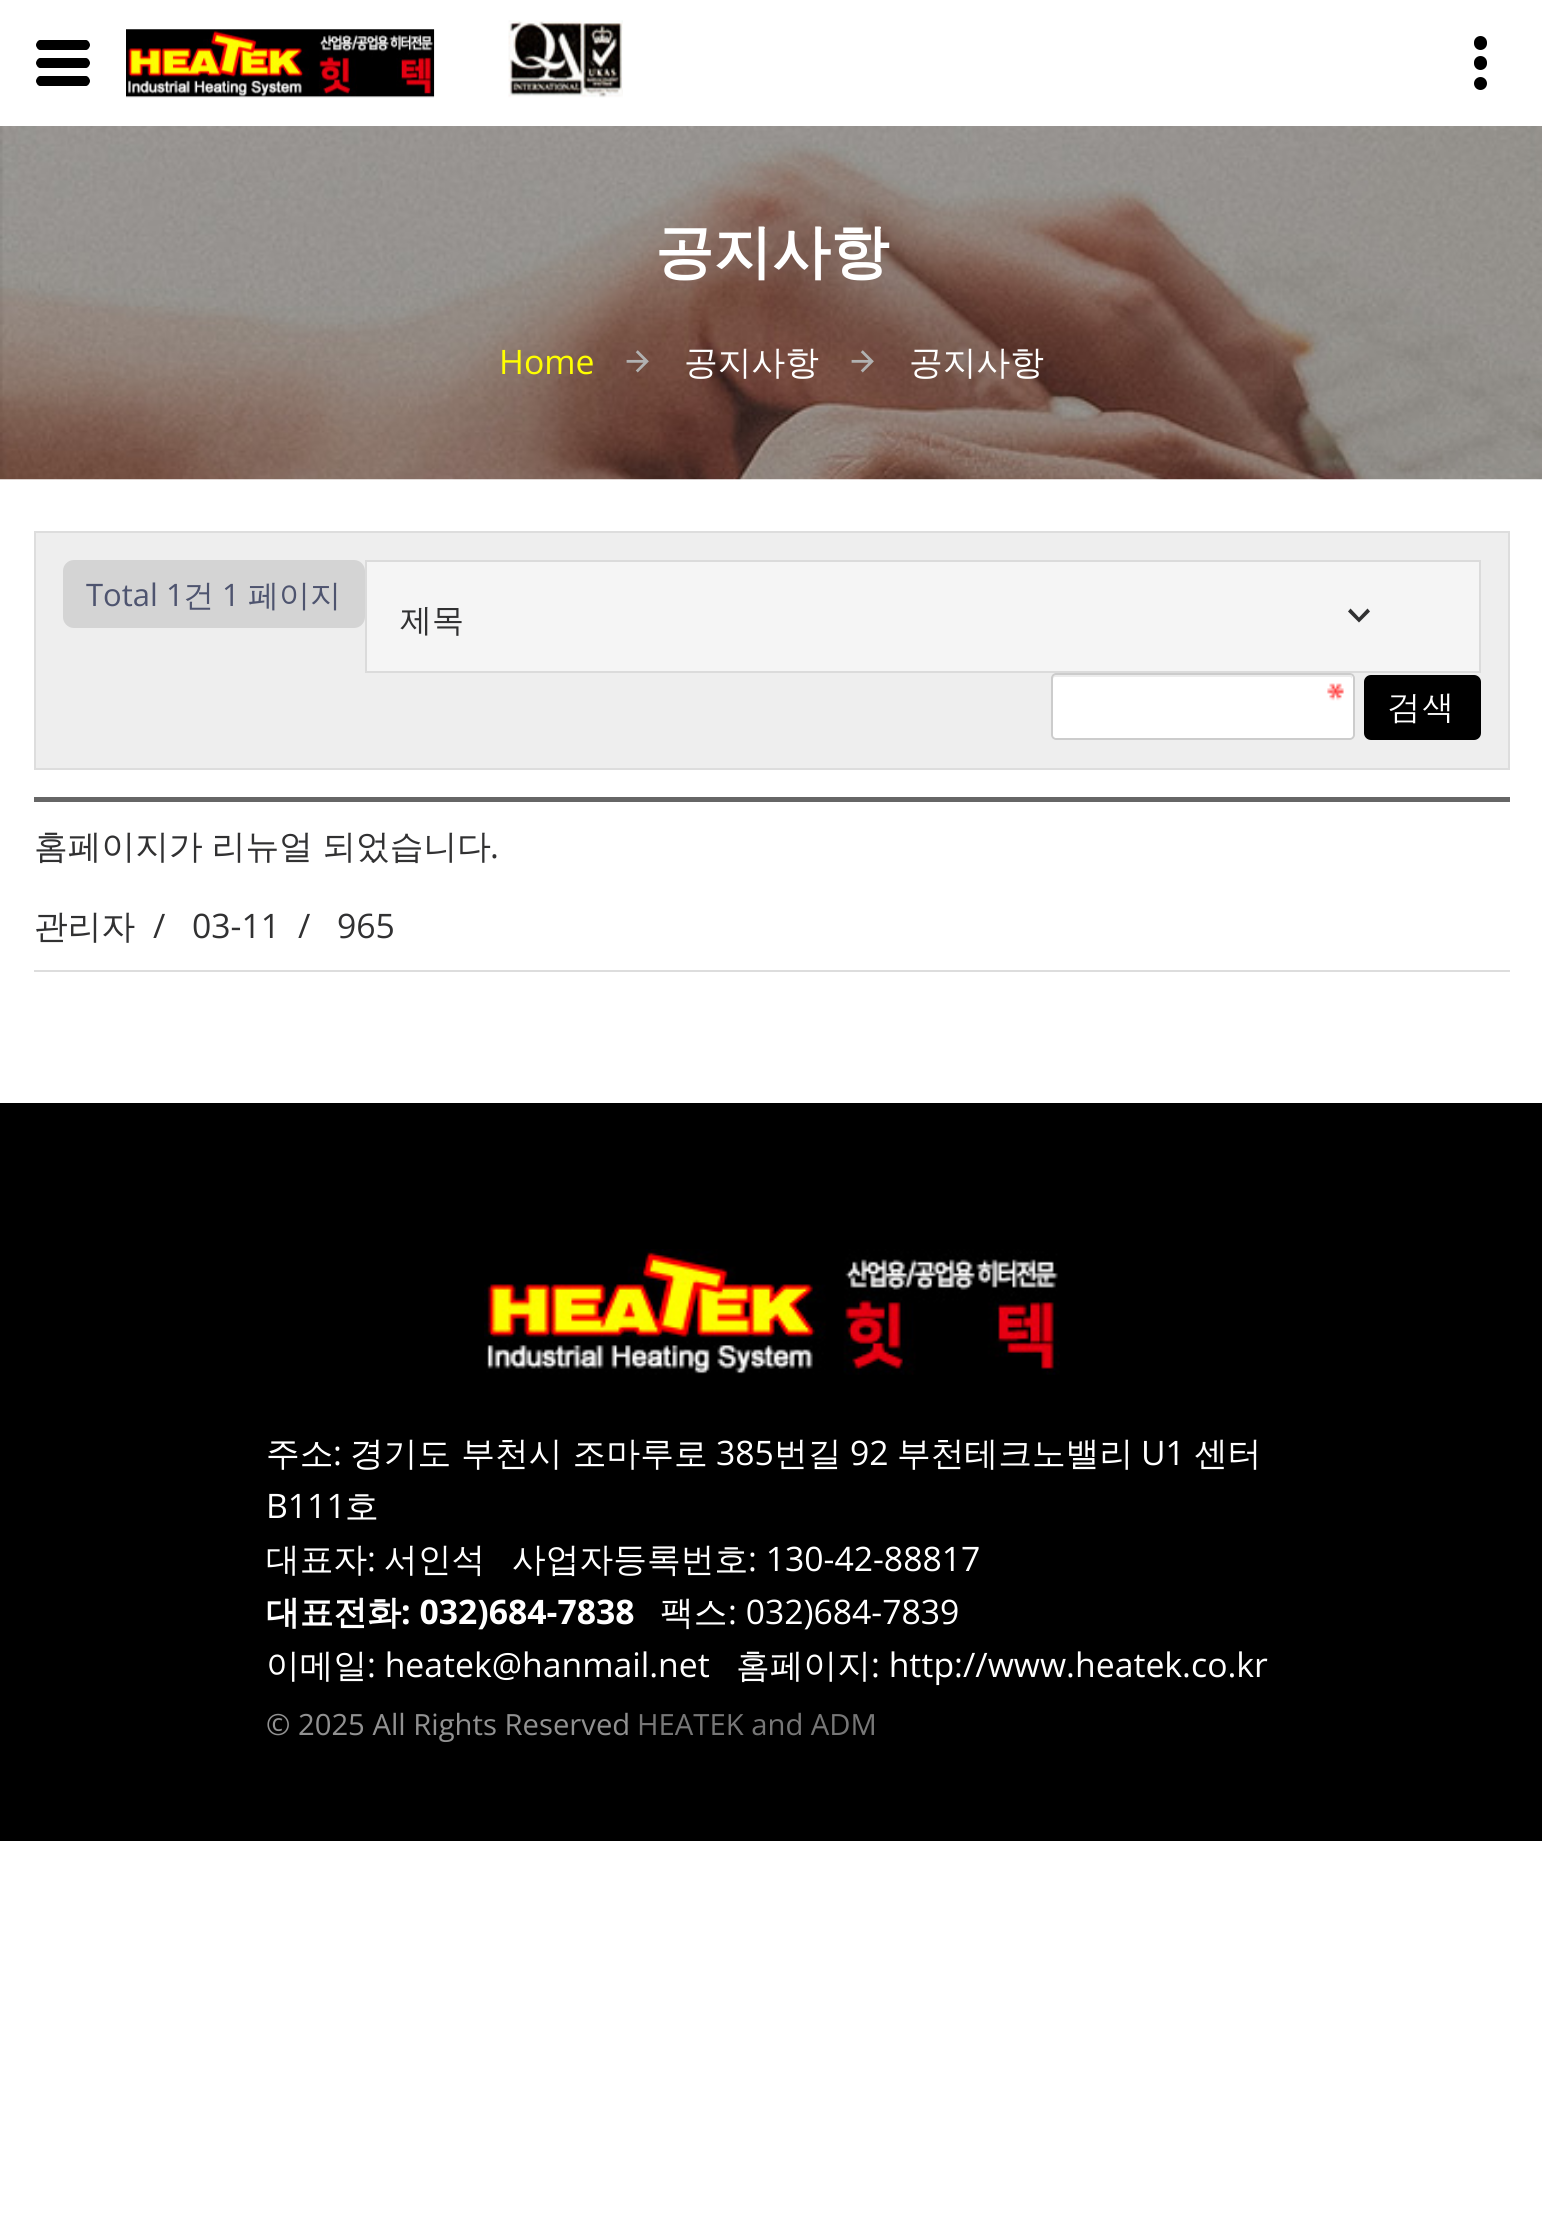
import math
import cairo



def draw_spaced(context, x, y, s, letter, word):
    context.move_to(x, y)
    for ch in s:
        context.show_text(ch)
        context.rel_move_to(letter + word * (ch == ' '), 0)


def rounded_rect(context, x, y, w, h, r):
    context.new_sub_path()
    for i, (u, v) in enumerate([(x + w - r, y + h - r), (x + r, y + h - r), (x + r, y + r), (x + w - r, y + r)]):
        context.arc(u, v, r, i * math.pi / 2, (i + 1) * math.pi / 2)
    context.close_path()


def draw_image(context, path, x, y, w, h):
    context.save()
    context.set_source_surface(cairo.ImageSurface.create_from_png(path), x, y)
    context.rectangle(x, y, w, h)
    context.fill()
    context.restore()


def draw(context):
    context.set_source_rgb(1, 1, 1)
    context.paint()
    context.set_source_rgb(0, 0, 0)
    context.new_path()
    context.move_to(86, 68)
    context.line_to(40, 68)
    context.curve_to(38, 68, 36, 65, 36, 63)
    context.curve_to(36, 61, 38, 58, 40, 58)
    context.line_to(86, 58)
    context.curve_to(88, 58, 90, 61, 90, 63)
    context.curve_to(90, 65, 88, 68, 86, 68)
    context.close_path()
    context.move_to(86, 86)
    context.line_to(40, 86)
    context.curve_to(38, 86, 36, 83, 36, 81)
    context.curve_to(36, 79, 38, 76, 40, 76)
    context.line_to(86, 76)
    context.curve_to(88, 76, 90, 79, 90, 81)
    context.curve_to(90, 83, 88, 86, 86, 86)
    context.close_path()
    context.move_to(86, 50)
    context.line_to(40, 50)
    context.curve_to(38, 50, 36, 47, 36, 45)
    context.curve_to(36, 43, 38, 40, 40, 40)
    context.line_to(86, 40)
    context.curve_to(88, 40, 90, 43, 90, 45)
    context.curve_to(90, 47, 88, 50, 86, 50)
    context.close_path()
    context.fill()
    draw_image(context, "images/1.png", 126, 29, 309, 69)
    draw_image(context, "images/2.png", 508, 20, 115, 78)
    rounded_rect(context, 1474, 56, 13, 14, 6.5)
    context.fill()
    rounded_rect(context, 1474, 36, 13, 14, 6.5)
    context.fill()
    context.arc(1480.5, 83.5, 6.5, 0, 2 * math.pi)
    context.fill()
    draw_image(context, "images/3.png", 0, 126, 1542, 354)
    draw_image(context, "images/4.png", 626, 350, 23, 23)
    draw_image(context, "images/5.png", 851, 350, 23, 23)
    context.set_source_rgb(238 / 255, 238 / 255, 238 / 255)
    context.rectangle(35, 532, 1474, 237)
    context.fill_preserve()
    context.set_source_rgb(221 / 255, 221 / 255, 221 / 255)
    context.stroke()
    context.set_source_rgb(212 / 255, 212 / 255, 212 / 255)
    rounded_rect(context, 63, 560, 302, 68, 11)
    context.fill()
    context.set_source_rgb(245 / 255, 245 / 255, 245 / 255)
    context.rectangle(366, 561, 1114, 111)
    context.fill_preserve()
    context.set_source_rgb(219 / 255, 219 / 255, 219 / 255)
    context.stroke()
    context.set_source_rgb(49 / 255, 49 / 255, 50 / 255)
    context.new_path()
    context.move_to(1350.5, 608.5)
    context.line_to(1359, 617.5)
    context.line_to(1367.5, 608.5)
    context.line_to(1370, 611.5)
    context.line_to(1359, 622.5)
    context.line_to(1348, 611.5)
    context.close_path()
    context.fill()
    context.set_source_rgb(1, 1, 1)
    rounded_rect(context, 1051, 673, 304, 67, 5)
    context.fill()
    draw_image(context, "images/6.png", 1327, 683, 17, 18)
    context.set_source_rgb(236 / 255, 236 / 255, 236 / 255)
    context.new_path()
    context.move_to(1055, 677)
    context.line_to(1350, 677)
    context.curve_to(1351, 677, 1352, 678, 1352, 680)
    context.curve_to(1352, 678, 1353, 675, 1350, 675)
    context.line_to(1055, 675)
    context.curve_to(1052, 675, 1053, 678, 1053, 680)
    context.curve_to(1053, 678, 1054, 677, 1055, 677)
    context.close_path()
    context.fill()
    rounded_rect(context, 1052, 674, 302, 65, 4)
    context.set_source_rgb(204 / 255, 204 / 255, 204 / 255)
    context.stroke()
    context.set_source_rgb(0, 0, 0)
    rounded_rect(context, 1365, 676, 115, 63, 6)
    context.fill_preserve()
    context.stroke()
    context.set_source_rgb(102 / 255, 102 / 255, 102 / 255)
    context.rectangle(34, 797, 1476, 5)
    context.fill()
    context.set_source_rgb(221 / 255, 221 / 255, 221 / 255)
    context.rectangle(34, 970, 1476, 2)
    context.fill()
    context.set_source_rgb(0, 0, 0)
    context.rectangle(0, 1103, 1542, 738)
    context.fill()
    draw_image(context, "images/7.png", 484, 1249, 576, 126)
    context.select_font_face("WenQuanYi Zen Hei", cairo.FontSlant.NORMAL, cairo.FontWeight.BOLD)
    context.set_font_size(58.5)
    context.set_source_rgb(1, 1, 1)
    context.move_to(655, 272)
    context.show_text("공지사항")
    context.select_font_face("Open Sans")
    context.set_font_size(33.75)
    context.set_source_rgb(1, 1, 0)
    context.move_to(499, 374)
    context.show_text("Home")
    context.select_font_face("WenQuanYi Zen Hei Medium")
    context.set_source_rgb(1, 1, 1)
    context.move_to(684, 374)
    context.show_text("공지사항")
    context.move_to(909, 374)
    context.show_text("공지사항")
    context.select_font_face("Open Sans")
    context.set_font_size(31)
    context.set_source_rgb(78 / 255, 84 / 255, 111 / 255)
    context.move_to(86, 606)
    context.show_text("Total 1")
    context.select_font_face("WenQuanYi Zen Hei Medium")
    context.move_to(183, 606)
    context.show_text("건")
    context.select_font_face("Open Sans")
    context.move_to(222, 606)
    context.show_text("1")
    context.select_font_face("WenQuanYi Zen Hei Medium")
    context.move_to(248, 606)
    context.show_text("페이지")
    context.set_font_size(32)
    context.set_source_rgb(49 / 255, 49 / 255, 50 / 255)
    context.move_to(400, 631)
    context.show_text("제목")
    context.select_font_face("Dotum")
    context.set_font_size(33.75)
    context.set_source_rgb(1, 1, 1)
    context.move_to(1388, 721)
    context.show_text("검색")
    context.select_font_face("WenQuanYi Zen Hei Medium")
    context.set_source_rgb(49 / 255, 49 / 255, 50 / 255)
    draw_spaced(context, 34, 858, "홈페이지가 리뉴얼 되었습니다", 0, -1)
    context.select_font_face("Open Sans")
    context.move_to(490, 858)
    context.show_text(".")
    context.select_font_face("WenQuanYi Zen Hei Medium")
    context.move_to(34, 938)
    context.show_text("관리자")
    context.select_font_face("Open Sans")
    context.move_to(153, 938)
    context.show_text("/")
    context.move_to(192, 938)
    context.show_text("03-11")
    context.move_to(298, 938)
    context.show_text("/")
    context.move_to(337, 938)
    context.show_text("965")
    context.select_font_face("WenQuanYi Zen Hei Medium")
    context.set_source_rgb(1, 1, 1)
    context.move_to(266, 1465)
    context.show_text("주소")
    context.select_font_face("Open Sans")
    context.move_to(333, 1465)
    context.show_text(":")
    context.select_font_face("WenQuanYi Zen Hei Medium")
    context.move_to(350, 1465)
    context.show_text("경기도 부천시 조마루로")
    context.select_font_face("Open Sans")
    context.move_to(716, 1465)
    context.show_text("385")
    context.select_font_face("WenQuanYi Zen Hei Medium")
    context.move_to(774, 1465)
    context.show_text("번길")
    context.select_font_face("Open Sans")
    context.move_to(850, 1465)
    context.show_text("92")
    context.select_font_face("WenQuanYi Zen Hei Medium")
    context.move_to(897, 1465)
    context.show_text("부천테크노밸리")
    context.select_font_face("Open Sans")
    context.move_to(1141, 1465)
    context.show_text("U1")
    context.select_font_face("WenQuanYi Zen Hei Medium")
    context.move_to(1194, 1465)
    context.show_text("센터")
    context.select_font_face("Open Sans")
    context.move_to(266, 1518)
    context.show_text("B111")
    context.select_font_face("WenQuanYi Zen Hei Medium")
    context.move_to(345, 1518)
    context.show_text("호")
    context.move_to(266, 1571)
    context.show_text("대표자")
    context.select_font_face("Open Sans")
    context.move_to(367, 1571)
    context.show_text(":")
    context.select_font_face("WenQuanYi Zen Hei Medium")
    context.move_to(384, 1571)
    context.show_text("서인석")
    context.move_to(512, 1571)
    context.show_text("사업자등록번호")
    context.select_font_face("Open Sans")
    context.move_to(748, 1571)
    context.show_text(": 130-42-88817")
    context.select_font_face("WenQuanYi Zen Hei", cairo.FontSlant.NORMAL, cairo.FontWeight.BOLD)
    context.move_to(266, 1624)
    context.show_text("대표전화")
    context.select_font_face("Open Sans", cairo.FontSlant.NORMAL, cairo.FontWeight.BOLD)
    context.move_to(401, 1624)
    context.show_text(": 032)684-7838")
    context.select_font_face("WenQuanYi Zen Hei Medium")
    context.move_to(660, 1624)
    context.show_text("팩스")
    context.select_font_face("Open Sans")
    context.move_to(728, 1624)
    context.show_text(": 032)684-7839")
    context.select_font_face("WenQuanYi Zen Hei Medium")
    context.move_to(266, 1677)
    context.show_text("이메일")
    context.select_font_face("Open Sans")
    context.move_to(367, 1677)
    context.show_text(": heatek@hanmail.net")
    context.select_font_face("WenQuanYi Zen Hei Medium")
    context.move_to(736, 1677)
    context.show_text("홈페이지")
    context.select_font_face("Open Sans")
    context.move_to(871, 1677)
    context.show_text(": http://www.heatek.co.kr")
    context.set_font_size(29.25)
    context.set_source_rgb(145 / 255, 145 / 255, 145 / 255)
    context.move_to(266, 1735)
    context.show_text("© 2025 All Rights Reserved")
    context.set_source_rgb(119 / 255, 119 / 255, 119 / 255)
    context.move_to(637, 1735)
    context.show_text("HEATEK and ADM")


surface = cairo.ImageSurface(cairo.Format.RGB24, 1542, 2235)
context = cairo.Context(surface)
options = cairo.FontOptions()
options.set_hint_metrics(cairo.HintMetrics.OFF)
options.set_hint_style(cairo.HintStyle.NONE)
context.set_font_options(options)
context.set_miter_limit(4)
draw(context)
surface.write_to_png("out.png")
